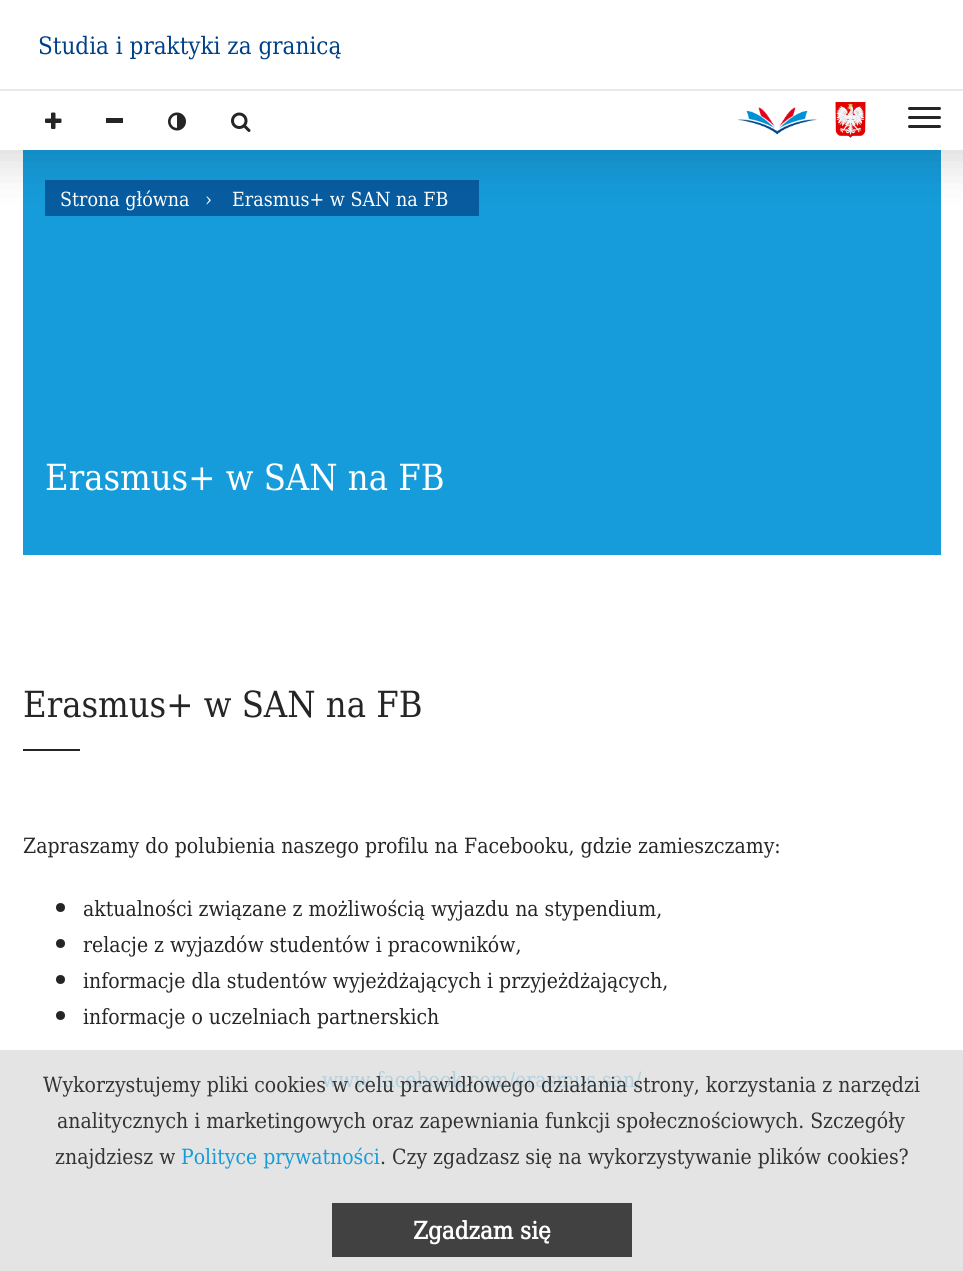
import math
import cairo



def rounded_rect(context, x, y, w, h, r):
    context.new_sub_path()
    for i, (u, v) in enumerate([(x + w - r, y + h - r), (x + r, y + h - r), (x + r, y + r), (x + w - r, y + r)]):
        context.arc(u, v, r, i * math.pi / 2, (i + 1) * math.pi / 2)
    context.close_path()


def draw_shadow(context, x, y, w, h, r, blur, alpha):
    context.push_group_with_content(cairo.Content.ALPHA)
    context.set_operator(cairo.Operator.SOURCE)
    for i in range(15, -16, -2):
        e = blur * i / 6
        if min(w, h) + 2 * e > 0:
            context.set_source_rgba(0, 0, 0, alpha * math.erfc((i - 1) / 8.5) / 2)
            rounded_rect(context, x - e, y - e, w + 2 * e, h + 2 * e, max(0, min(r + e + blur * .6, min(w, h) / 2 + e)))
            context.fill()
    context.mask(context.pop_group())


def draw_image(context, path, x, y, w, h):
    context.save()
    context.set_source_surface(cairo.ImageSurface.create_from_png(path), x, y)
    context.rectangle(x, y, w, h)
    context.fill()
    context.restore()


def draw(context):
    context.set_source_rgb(1, 1, 1)
    context.paint()
    context.set_source_rgb(22 / 255, 156 / 255, 218 / 255)
    context.rectangle(23, 150, 918, 405)
    context.fill()
    context.set_source_rgb(7 / 255, 92 / 255, 160 / 255)
    context.rectangle(45, 180, 434, 36)
    context.fill()
    context.set_source_rgb(0, 0, 0)
    draw_shadow(context, -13, -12, 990, 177, 0, 22, 0.14)
    context.set_source_rgb(1, 1, 1)
    context.rectangle(0, 0, 963, 150)
    context.fill()
    context.set_source_rgb(232 / 255, 232 / 255, 232 / 255)
    context.rectangle(0, 89, 963, 2)
    context.fill()
    draw_image(context, "images/1.png", 45, 112, 17, 17)
    context.set_source_rgb(37 / 255, 37 / 255, 37 / 255)
    context.rectangle(106, 118, 17, 5)
    context.fill()
    draw_image(context, "images/2.png", 168, 112, 18, 19)
    draw_image(context, "images/3.png", 231, 112, 20, 20)
    draw_image(context, "images/4.png", 737, 107, 80, 28)
    draw_image(context, "images/5.png", 835, 102, 31, 36)
    rounded_rect(context, 908, 107, 33, 3, 1.5)
    context.fill()
    rounded_rect(context, 908, 116, 33, 3, 1.5)
    context.fill()
    rounded_rect(context, 908, 125, 33, 3, 1.5)
    context.fill()
    context.set_source_rgb(228 / 255, 228 / 255, 228 / 255)
    context.rectangle(0, 1050, 963, 221)
    context.fill()
    context.set_source_rgb(37 / 255, 37 / 255, 37 / 255)
    context.rectangle(23, 749, 57, 2)
    context.fill()
    context.arc(60.5, 907.5, 4.5, 0, 2 * math.pi)
    context.fill()
    context.arc(60.5, 943.5, 4.5, 0, 2 * math.pi)
    context.fill()
    context.arc(60.5, 979.5, 4.5, 0, 2 * math.pi)
    context.fill()
    context.arc(60.5, 1015.5, 4.5, 0, 2 * math.pi)
    context.fill()
    context.set_source_rgb(65 / 255, 65 / 255, 65 / 255)
    context.rectangle(332, 1203, 300, 54)
    context.fill()
    context.select_font_face("DejaVu Serif")
    context.set_font_size(24)
    context.set_source_rgb(0, 64 / 255, 135 / 255)
    context.move_to(38, 54)
    context.show_text("Studia i praktyki za granicą")
    context.set_font_size(19.5)
    context.set_source_rgb(1, 1, 1)
    context.move_to(60, 206)
    context.show_text("Strona główna")
    context.move_to(205, 206)
    context.show_text("›")
    context.move_to(232, 206)
    context.show_text("Erasmus+ w SAN na FB")
    context.set_font_size(36)
    context.move_to(45, 490)
    context.show_text("Erasmus+ w SAN na FB")
    context.set_source_rgb(37 / 255, 37 / 255, 37 / 255)
    context.move_to(23, 717)
    context.show_text("Erasmus+ w SAN na FB")
    context.set_font_size(21)
    context.move_to(23, 853)
    context.show_text("Zapraszamy do polubienia naszego profilu na Facebooku, gdzie zamieszczamy:")
    context.move_to(83, 916)
    context.show_text("aktualności związane z możliwością wyjazdu na stypendium,")
    context.move_to(83, 952)
    context.show_text("relacje z wyjazdów studentów i pracowników,")
    context.move_to(83, 988)
    context.show_text("informacje dla studentów wyjeżdżających i przyjeżdżających,")
    context.move_to(83, 1024)
    context.show_text("informacje o uczelniach partnerskich")
    context.set_source_rgb(181 / 255, 208 / 255, 220 / 255)
    context.move_to(322, 1087)
    context.show_text("www.facebook.com/erasmus.san/")
    context.set_source_rgb(51 / 255, 51 / 255, 51 / 255)
    context.move_to(43, 1092)
    context.show_text("Wykorzystujemy pliki cookies w celu prawidłowego działania strony, korzystania z narzędzi")
    context.move_to(57, 1128)
    context.show_text("analitycznych i marketingowych oraz zapewniania funkcji społecznościowych. Szczegóły")
    context.move_to(55, 1164)
    context.show_text("znajdziesz w")
    context.set_source_rgb(22 / 255, 156 / 255, 218 / 255)
    context.move_to(181, 1164)
    context.show_text("Polityce prywatności")
    context.set_source_rgb(51 / 255, 51 / 255, 51 / 255)
    context.move_to(380, 1164)
    context.show_text(". Czy zgadzasz się na wykorzystywanie plików cookies?")
    context.select_font_face("DejaVu Serif", cairo.FontSlant.NORMAL, cairo.FontWeight.BOLD)
    context.set_font_size(24)
    context.set_source_rgb(1, 1, 1)
    context.move_to(413, 1239)
    context.show_text("Zgadzam się")


surface = cairo.ImageSurface(cairo.Format.RGB24, 963, 1271)
context = cairo.Context(surface)
options = cairo.FontOptions()
options.set_hint_metrics(cairo.HintMetrics.OFF)
options.set_hint_style(cairo.HintStyle.NONE)
context.set_font_options(options)
context.set_miter_limit(4)
draw(context)
surface.write_to_png("out.png")
